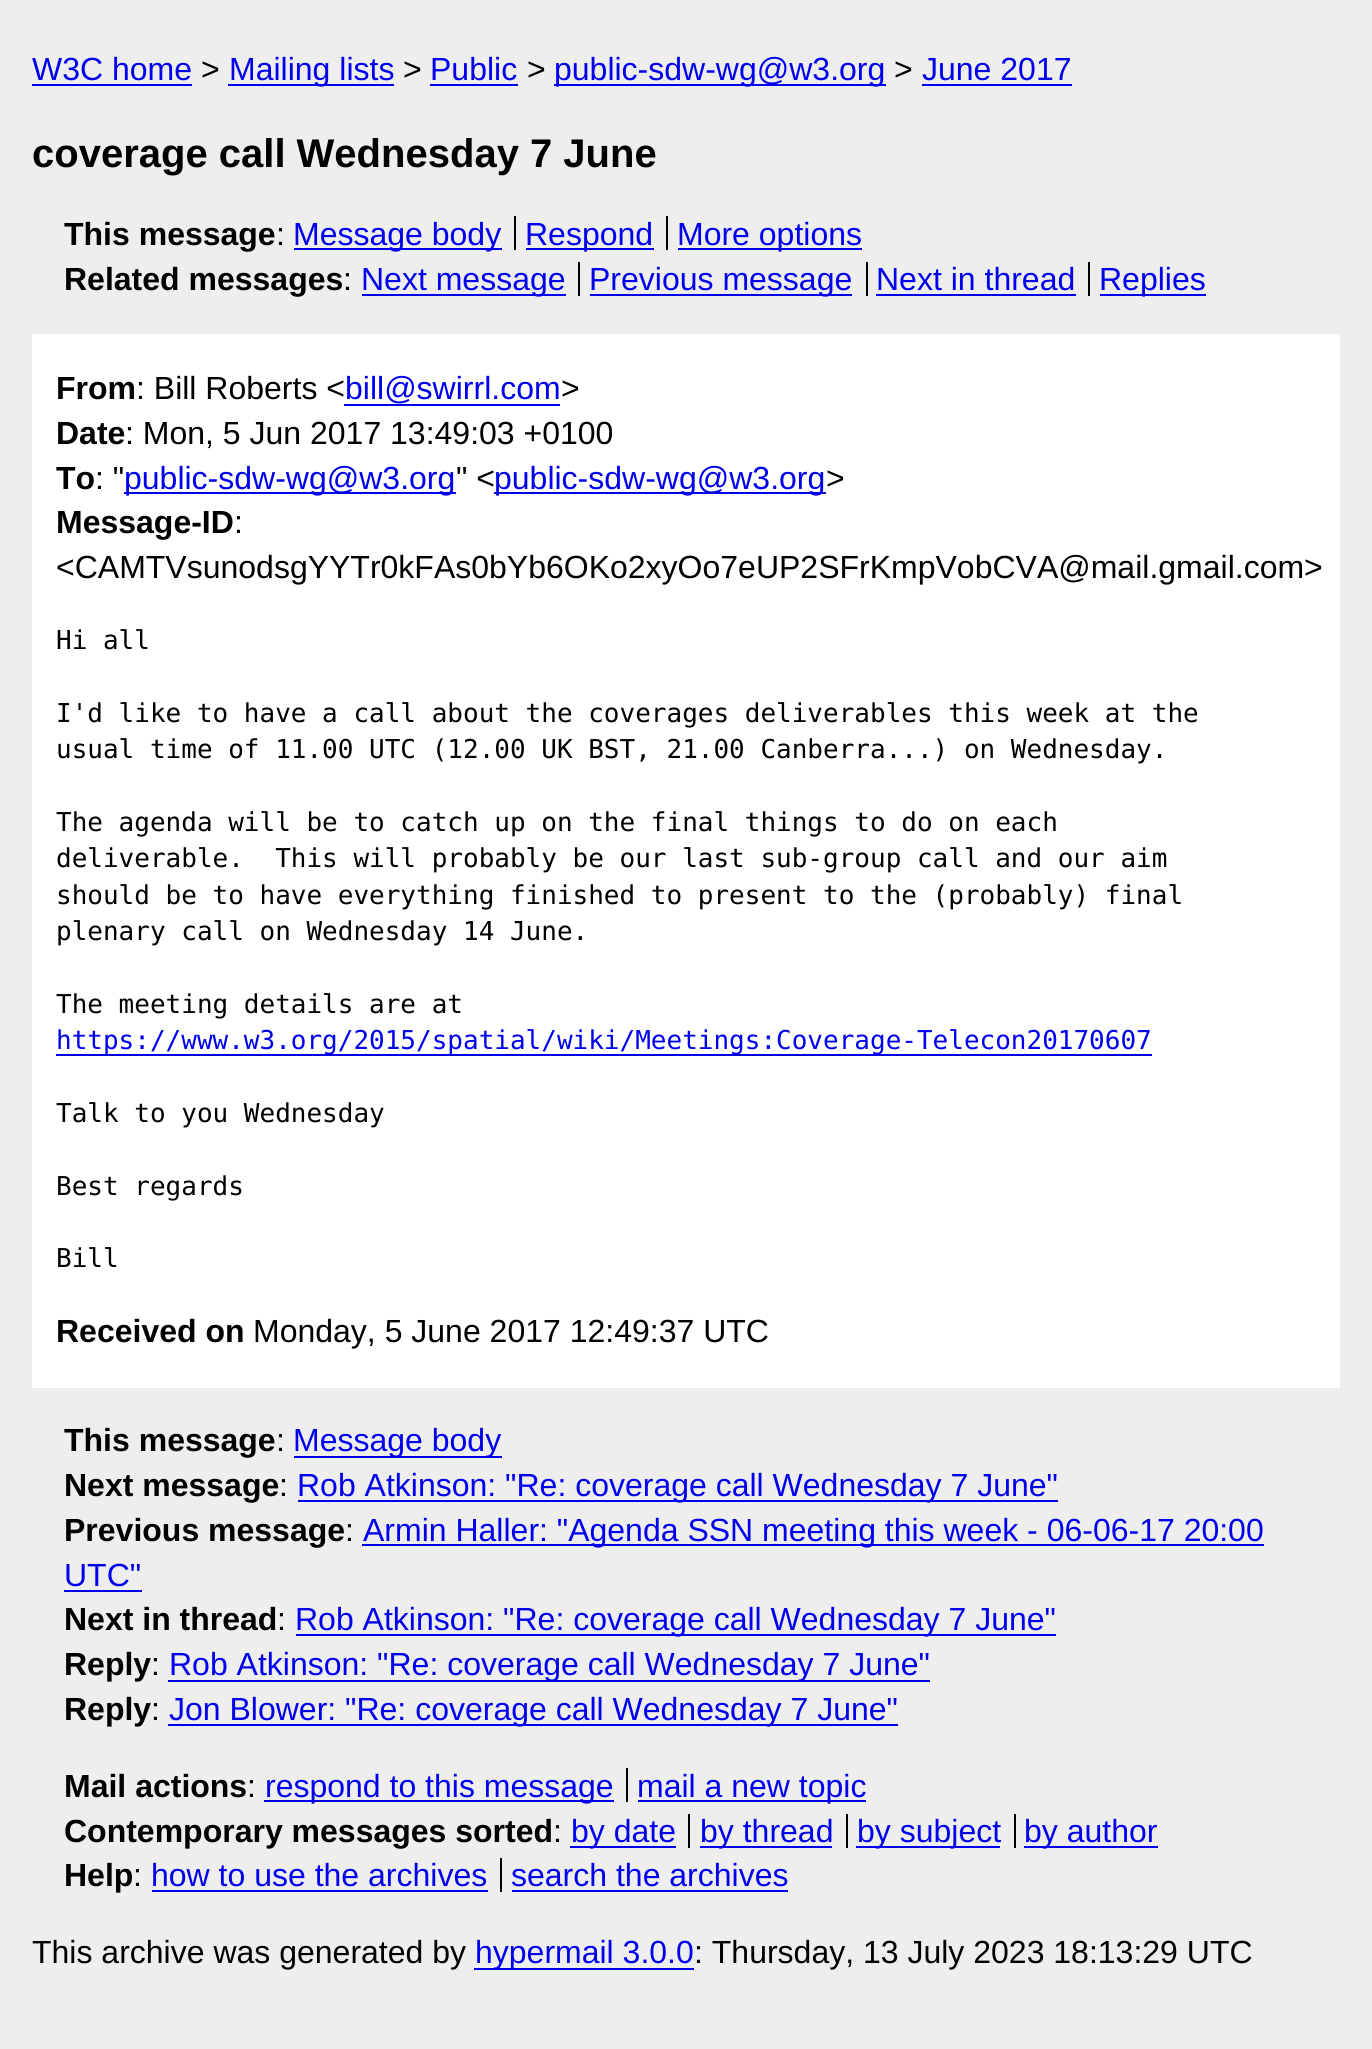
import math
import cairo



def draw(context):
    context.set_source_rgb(238 / 255, 238 / 255, 238 / 255)
    context.paint()
    context.set_source_rgb(0, 0, 238 / 255)
    context.rectangle(32, 84, 160, 2)
    context.fill()
    context.rectangle(228, 84, 166, 2)
    context.fill()
    context.rectangle(430, 84, 88, 2)
    context.fill()
    context.rectangle(554, 84, 332, 2)
    context.fill()
    context.rectangle(922, 84, 150, 2)
    context.fill()
    context.rectangle(294, 248, 208, 2)
    context.fill()
    context.set_source_rgb(0, 0, 0)
    context.rectangle(514, 216, 2, 34)
    context.fill()
    context.set_source_rgb(0, 0, 238 / 255)
    context.rectangle(526, 248, 128, 2)
    context.fill()
    context.set_source_rgb(0, 0, 0)
    context.rectangle(666, 216, 2, 34)
    context.fill()
    context.set_source_rgb(0, 0, 238 / 255)
    context.rectangle(678, 248, 184, 2)
    context.fill()
    context.rectangle(362, 294, 204, 2)
    context.fill()
    context.set_source_rgb(0, 0, 0)
    context.rectangle(578, 262, 2, 34)
    context.fill()
    context.set_source_rgb(0, 0, 238 / 255)
    context.rectangle(590, 294, 262, 2)
    context.fill()
    context.set_source_rgb(0, 0, 0)
    context.rectangle(866, 262, 2, 34)
    context.fill()
    context.rectangle(1088, 262, 2, 34)
    context.fill()
    context.set_source_rgb(0, 0, 238 / 255)
    context.rectangle(876, 294, 200, 2)
    context.fill()
    context.rectangle(1100, 294, 106, 2)
    context.fill()
    context.set_source_rgb(1, 1, 1)
    context.rectangle(32, 334, 1308, 1054)
    context.fill()
    context.set_source_rgb(0, 0, 238 / 255)
    context.rectangle(344, 404, 216, 2)
    context.fill()
    context.rectangle(124, 492, 332, 2)
    context.fill()
    context.rectangle(494, 492, 332, 2)
    context.fill()
    context.rectangle(56, 1054, 1096, 2)
    context.fill()
    context.rectangle(294, 1456, 208, 2)
    context.fill()
    context.rectangle(298, 1500, 760, 2)
    context.fill()
    context.rectangle(362, 1544, 902, 2)
    context.fill()
    context.rectangle(64, 1590, 78, 2)
    context.fill()
    context.rectangle(296, 1634, 760, 2)
    context.fill()
    context.rectangle(168, 1680, 762, 2)
    context.fill()
    context.rectangle(168, 1724, 730, 2)
    context.fill()
    context.rectangle(264, 1800, 350, 2)
    context.fill()
    context.set_source_rgb(0, 0, 0)
    context.rectangle(626, 1768, 2, 34)
    context.fill()
    context.set_source_rgb(0, 0, 238 / 255)
    context.rectangle(638, 1800, 228, 2)
    context.fill()
    context.rectangle(570, 1846, 106, 2)
    context.fill()
    context.set_source_rgb(0, 0, 0)
    context.rectangle(688, 1814, 2, 34)
    context.fill()
    context.set_source_rgb(0, 0, 238 / 255)
    context.rectangle(700, 1846, 132, 2)
    context.fill()
    context.set_source_rgb(0, 0, 0)
    context.rectangle(846, 1814, 2, 34)
    context.fill()
    context.set_source_rgb(0, 0, 238 / 255)
    context.rectangle(856, 1846, 144, 2)
    context.fill()
    context.set_source_rgb(0, 0, 0)
    context.rectangle(1014, 1814, 2, 34)
    context.fill()
    context.set_source_rgb(0, 0, 238 / 255)
    context.rectangle(1024, 1846, 134, 2)
    context.fill()
    context.rectangle(152, 1890, 336, 2)
    context.fill()
    context.set_source_rgb(0, 0, 0)
    context.rectangle(500, 1858, 2, 34)
    context.fill()
    context.set_source_rgb(0, 0, 238 / 255)
    context.rectangle(512, 1890, 276, 2)
    context.fill()
    context.rectangle(474, 1968, 220, 2)
    context.fill()
    context.select_font_face("Liberation Sans")
    context.set_font_size(32)
    context.move_to(32, 80)
    context.show_text("W3C home")
    context.set_source_rgb(0, 0, 0)
    context.move_to(201, 80)
    context.show_text(">")
    context.set_source_rgb(0, 0, 238 / 255)
    context.move_to(229, 80)
    context.show_text("Mailing lists")
    context.set_source_rgb(0, 0, 0)
    context.move_to(403, 80)
    context.show_text(">")
    context.set_source_rgb(0, 0, 238 / 255)
    context.move_to(430, 80)
    context.show_text("Public")
    context.set_source_rgb(0, 0, 0)
    context.move_to(527, 80)
    context.show_text(">")
    context.set_source_rgb(0, 0, 238 / 255)
    context.move_to(554, 80)
    context.show_text("public-sdw-wg@w3.org")
    context.set_source_rgb(0, 0, 0)
    context.move_to(894, 80)
    context.show_text(">")
    context.set_source_rgb(0, 0, 238 / 255)
    context.move_to(922, 80)
    context.show_text("June 2017")
    context.select_font_face("Liberation Sans", cairo.FontSlant.NORMAL, cairo.FontWeight.BOLD)
    context.set_font_size(40)
    context.set_source_rgb(0, 0, 0)
    context.move_to(32, 167)
    context.show_text("coverage call Wednesday 7 June")
    context.set_font_size(32)
    context.move_to(64, 245)
    context.show_text("This message")
    context.select_font_face("Liberation Sans")
    context.move_to(276, 245)
    context.show_text(":")
    context.set_source_rgb(0, 0, 238 / 255)
    context.move_to(293, 245)
    context.show_text("Message body")
    context.move_to(525, 245)
    context.show_text("Respond")
    context.move_to(677, 245)
    context.show_text("More options")
    context.select_font_face("Liberation Sans", cairo.FontSlant.NORMAL, cairo.FontWeight.BOLD)
    context.set_source_rgb(0, 0, 0)
    context.move_to(64, 290)
    context.show_text("Related messages")
    context.select_font_face("Liberation Sans")
    context.move_to(343, 290)
    context.show_text(":")
    context.set_source_rgb(0, 0, 238 / 255)
    context.move_to(361, 290)
    context.show_text("Next message")
    context.move_to(589, 290)
    context.show_text("Previous message")
    context.move_to(876, 290)
    context.show_text("Next in thread")
    context.move_to(1099, 290)
    context.show_text("Replies")
    context.select_font_face("Liberation Sans", cairo.FontSlant.NORMAL, cairo.FontWeight.BOLD)
    context.set_source_rgb(0, 0, 0)
    context.move_to(56, 399)
    context.show_text("From")
    context.select_font_face("Liberation Sans")
    context.move_to(136, 399)
    context.show_text(": Bill Roberts <")
    context.set_source_rgb(0, 0, 238 / 255)
    context.move_to(345, 399)
    context.show_text("bill@swirrl.com")
    context.set_source_rgb(0, 0, 0)
    context.move_to(561, 399)
    context.show_text(">")
    context.select_font_face("Liberation Sans", cairo.FontSlant.NORMAL, cairo.FontWeight.BOLD)
    context.move_to(56, 444)
    context.show_text("Date")
    context.select_font_face("Liberation Sans")
    context.move_to(125, 444)
    context.show_text(": Mon, 5 Jun 2017 13:49:03 +0100")
    context.select_font_face("Liberation Sans", cairo.FontSlant.NORMAL, cairo.FontWeight.BOLD)
    context.move_to(56, 489)
    context.show_text("To")
    context.select_font_face("Liberation Sans")
    context.move_to(95, 489)
    context.show_text(": \"")
    context.set_source_rgb(0, 0, 238 / 255)
    context.move_to(124, 489)
    context.show_text("public-sdw-wg@w3.org")
    context.set_source_rgb(0, 0, 0)
    context.move_to(456, 489)
    context.show_text("\" <")
    context.set_source_rgb(0, 0, 238 / 255)
    context.move_to(494, 489)
    context.show_text("public-sdw-wg@w3.org")
    context.set_source_rgb(0, 0, 0)
    context.move_to(826, 489)
    context.show_text(">")
    context.select_font_face("Liberation Sans", cairo.FontSlant.NORMAL, cairo.FontWeight.BOLD)
    context.move_to(56, 533)
    context.show_text("Message-ID")
    context.select_font_face("Liberation Sans")
    context.move_to(234, 533)
    context.show_text(":")
    context.move_to(56, 578)
    context.show_text("<CAMTVsunodsgYYTr0kFAs0bYb6OKo2xyOo7eUP2SFrKmpVobCVA@mail.gmail.com>")
    context.select_font_face("DejaVu Sans Mono")
    context.set_font_size(26)
    context.move_to(56, 649)
    context.show_text("Hi all")
    context.move_to(56, 722)
    context.show_text("I'd like to have a call about the coverages deliverables this week at the")
    context.move_to(56, 758)
    context.show_text("usual time of 11.00 UTC (12.00 UK BST, 21.00 Canberra...) on Wednesday.")
    context.move_to(56, 831)
    context.show_text("The agenda will be to catch up on the final things to do on each")
    context.move_to(56, 867)
    context.show_text("deliverable.  This will probably be our last sub-group call and our aim")
    context.move_to(56, 904)
    context.show_text("should be to have everything finished to present to the (probably) final")
    context.move_to(56, 940)
    context.show_text("plenary call on Wednesday 14 June.")
    context.move_to(56, 1013)
    context.show_text("The meeting details are at")
    context.set_source_rgb(0, 0, 238 / 255)
    context.move_to(56, 1049)
    context.show_text("https://www.w3.org/2015/spatial/wiki/Meetings:Coverage-Telecon20170607")
    context.set_source_rgb(0, 0, 0)
    context.move_to(56, 1122)
    context.show_text("Talk to you Wednesday")
    context.move_to(56, 1195)
    context.show_text("Best regards")
    context.move_to(56, 1267)
    context.show_text("Bill")
    context.select_font_face("Liberation Sans", cairo.FontSlant.NORMAL, cairo.FontWeight.BOLD)
    context.set_font_size(32)
    context.move_to(56, 1342)
    context.show_text("Received on")
    context.select_font_face("Liberation Sans")
    context.move_to(253, 1342)
    context.show_text("Monday, 5 June 2017 12:49:37 UTC")
    context.select_font_face("Liberation Sans", cairo.FontSlant.NORMAL, cairo.FontWeight.BOLD)
    context.move_to(64, 1451)
    context.show_text("This message")
    context.select_font_face("Liberation Sans")
    context.move_to(276, 1451)
    context.show_text(":")
    context.set_source_rgb(0, 0, 238 / 255)
    context.move_to(293, 1451)
    context.show_text("Message body")
    context.select_font_face("Liberation Sans", cairo.FontSlant.NORMAL, cairo.FontWeight.BOLD)
    context.set_source_rgb(0, 0, 0)
    context.move_to(64, 1496)
    context.show_text("Next message")
    context.select_font_face("Liberation Sans")
    context.move_to(279, 1496)
    context.show_text(":")
    context.set_source_rgb(0, 0, 238 / 255)
    context.move_to(297, 1496)
    context.show_text("Rob Atkinson: \"Re: coverage call Wednesday 7 June\"")
    context.select_font_face("Liberation Sans", cairo.FontSlant.NORMAL, cairo.FontWeight.BOLD)
    context.set_source_rgb(0, 0, 0)
    context.move_to(64, 1541)
    context.show_text("Previous message")
    context.select_font_face("Liberation Sans")
    context.move_to(345, 1541)
    context.show_text(":")
    context.set_source_rgb(0, 0, 238 / 255)
    context.move_to(363, 1541)
    context.show_text("Armin Haller: \"Agenda SSN meeting this week - 06-06-17 20:00")
    context.move_to(64, 1586)
    context.show_text("UTC\"")
    context.select_font_face("Liberation Sans", cairo.FontSlant.NORMAL, cairo.FontWeight.BOLD)
    context.set_source_rgb(0, 0, 0)
    context.move_to(64, 1630)
    context.show_text("Next in thread")
    context.select_font_face("Liberation Sans")
    context.move_to(277, 1630)
    context.show_text(":")
    context.set_source_rgb(0, 0, 238 / 255)
    context.move_to(295, 1630)
    context.show_text("Rob Atkinson: \"Re: coverage call Wednesday 7 June\"")
    context.select_font_face("Liberation Sans", cairo.FontSlant.NORMAL, cairo.FontWeight.BOLD)
    context.set_source_rgb(0, 0, 0)
    context.move_to(64, 1675)
    context.show_text("Reply")
    context.select_font_face("Liberation Sans")
    context.move_to(151, 1675)
    context.show_text(":")
    context.set_source_rgb(0, 0, 238 / 255)
    context.move_to(169, 1675)
    context.show_text("Rob Atkinson: \"Re: coverage call Wednesday 7 June\"")
    context.select_font_face("Liberation Sans", cairo.FontSlant.NORMAL, cairo.FontWeight.BOLD)
    context.set_source_rgb(0, 0, 0)
    context.move_to(64, 1720)
    context.show_text("Reply")
    context.select_font_face("Liberation Sans")
    context.move_to(151, 1720)
    context.show_text(":")
    context.set_source_rgb(0, 0, 238 / 255)
    context.move_to(169, 1720)
    context.show_text("Jon Blower: \"Re: coverage call Wednesday 7 June\"")
    context.select_font_face("Liberation Sans", cairo.FontSlant.NORMAL, cairo.FontWeight.BOLD)
    context.set_source_rgb(0, 0, 0)
    context.move_to(64, 1797)
    context.show_text("Mail actions")
    context.select_font_face("Liberation Sans")
    context.move_to(247, 1797)
    context.show_text(":")
    context.set_source_rgb(0, 0, 238 / 255)
    context.move_to(265, 1797)
    context.show_text("respond to this message")
    context.move_to(637, 1797)
    context.show_text("mail a new topic")
    context.select_font_face("Liberation Sans", cairo.FontSlant.NORMAL, cairo.FontWeight.BOLD)
    context.set_source_rgb(0, 0, 0)
    context.move_to(64, 1842)
    context.show_text("Contemporary messages sorted")
    context.select_font_face("Liberation Sans")
    context.move_to(553, 1842)
    context.show_text(":")
    context.set_source_rgb(0, 0, 238 / 255)
    context.move_to(571, 1842)
    context.show_text("by date")
    context.move_to(700, 1842)
    context.show_text("by thread")
    context.move_to(857, 1842)
    context.show_text("by subject")
    context.move_to(1024, 1842)
    context.show_text("by author")
    context.select_font_face("Liberation Sans", cairo.FontSlant.NORMAL, cairo.FontWeight.BOLD)
    context.set_source_rgb(0, 0, 0)
    context.move_to(64, 1886)
    context.show_text("Help")
    context.select_font_face("Liberation Sans")
    context.move_to(133, 1886)
    context.show_text(":")
    context.set_source_rgb(0, 0, 238 / 255)
    context.move_to(151, 1886)
    context.show_text("how to use the archives")
    context.move_to(511, 1886)
    context.show_text("search the archives")
    context.set_source_rgb(0, 0, 0)
    context.move_to(32, 1963)
    context.show_text("This archive was generated by")
    context.set_source_rgb(0, 0, 238 / 255)
    context.move_to(475, 1963)
    context.show_text("hypermail 3.0.0")
    context.set_source_rgb(0, 0, 0)
    context.move_to(694, 1963)
    context.show_text(": Thursday, 13 July 2023 18:13:29 UTC")


surface = cairo.ImageSurface(cairo.Format.RGB24, 1372, 2049)
context = cairo.Context(surface)
options = cairo.FontOptions()
options.set_hint_metrics(cairo.HintMetrics.OFF)
options.set_hint_style(cairo.HintStyle.NONE)
context.set_font_options(options)
context.set_miter_limit(4)
draw(context)
surface.write_to_png("out.png")
